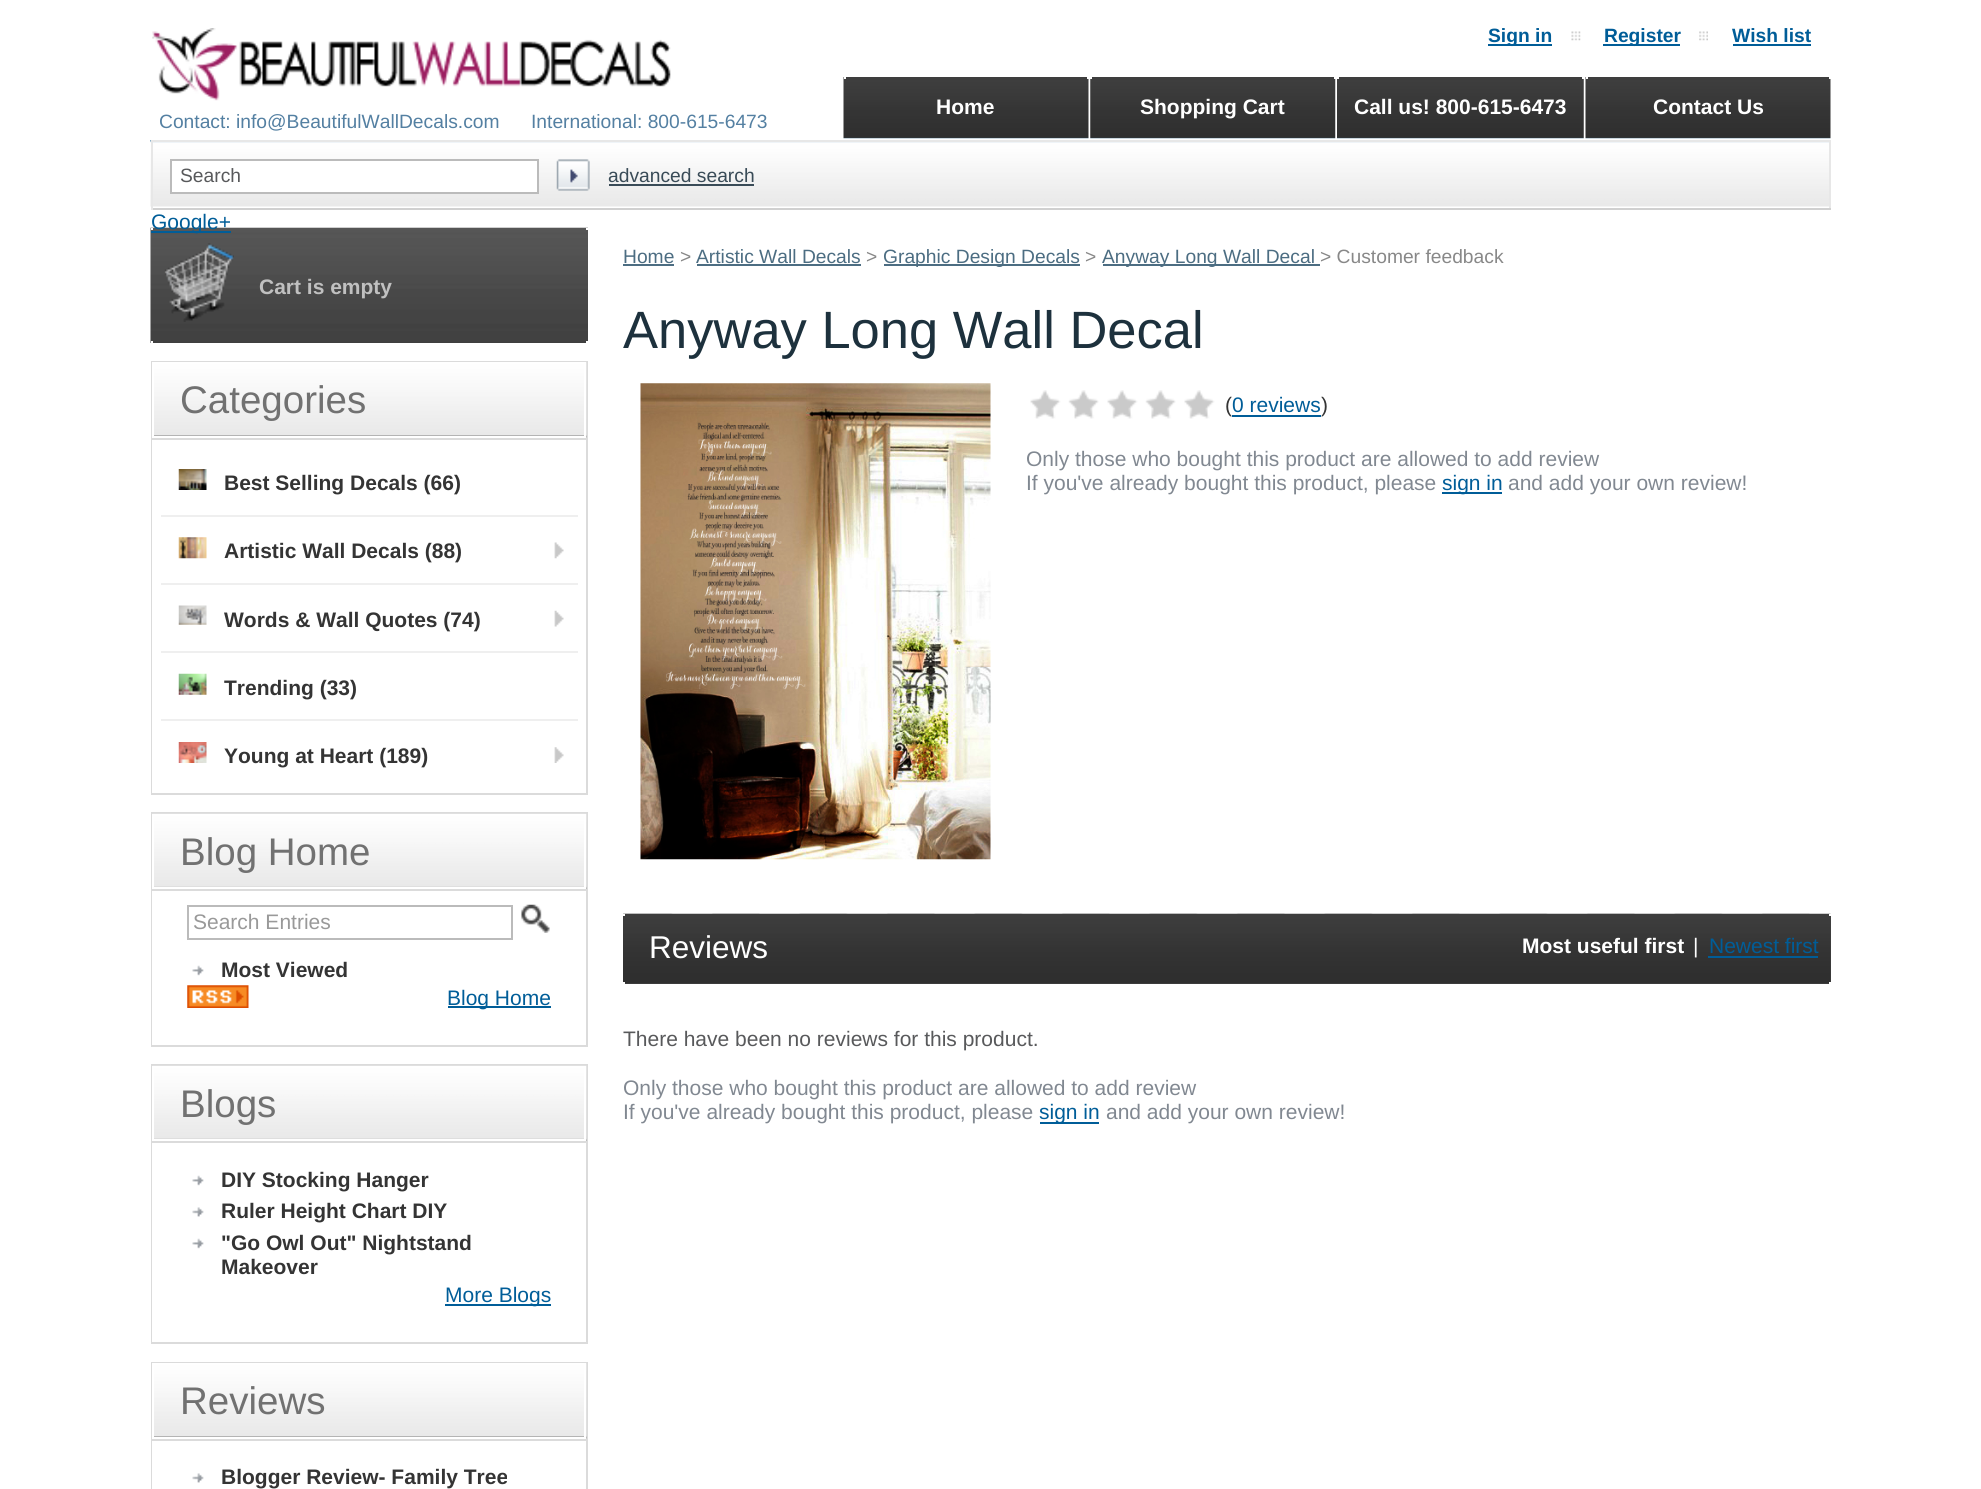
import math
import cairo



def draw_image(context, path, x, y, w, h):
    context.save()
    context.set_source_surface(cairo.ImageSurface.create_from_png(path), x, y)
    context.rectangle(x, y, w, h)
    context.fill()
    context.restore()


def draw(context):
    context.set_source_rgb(1, 1, 1)
    context.paint()
    draw_image(context, "images/1.png", 152, 28, 519, 73)
    context.set_source_rgb(0, 93 / 255, 152 / 255)
    context.rectangle(1488, 44, 64, 2)
    context.fill()
    draw_image(context, "images/2.png", 1571, 31, 10, 10)
    context.rectangle(1603, 44, 77, 2)
    context.fill()
    draw_image(context, "images/3.png", 1699, 31, 9, 10)
    context.rectangle(1733, 44, 78, 2)
    context.fill()
    draw_image(context, "images/4.png", 843, 77, 246, 62)
    context.set_source_rgb(1, 1, 1)
    context.rectangle(844, 77, 2, 2)
    context.fill()
    context.rectangle(1087, 77, 2, 2)
    context.fill()
    draw_image(context, "images/5.png", 1090, 77, 246, 62)
    context.rectangle(1090, 77, 2, 2)
    context.fill()
    context.rectangle(1334, 77, 2, 2)
    context.fill()
    draw_image(context, "images/6.png", 1337, 77, 247, 62)
    context.rectangle(1337, 77, 2, 2)
    context.fill()
    context.rectangle(1582, 77, 2, 2)
    context.fill()
    draw_image(context, "images/4.png", 1585, 77, 246, 62)
    context.rectangle(1586, 77, 2, 2)
    context.fill()
    context.rectangle(1829, 77, 2, 2)
    context.fill()
    draw_image(context, "images/7.png", 150, 140, 1679, 67)
    context.set_source_rgb(231 / 255, 231 / 255, 231 / 255)
    context.rectangle(151, 140, 1680, 2)
    context.fill()
    context.rectangle(1829, 140, 2, 70)
    context.fill()
    context.set_source_rgb(208 / 255, 208 / 255, 208 / 255)
    context.rectangle(151, 208, 1680, 2)
    context.fill()
    context.set_source_rgb(231 / 255, 231 / 255, 231 / 255)
    context.rectangle(151, 140, 2, 70)
    context.fill()
    context.set_source_rgb(1, 1, 1)
    context.rectangle(171, 160, 367, 33)
    context.fill_preserve()
    context.set_source_rgb(187 / 255, 187 / 255, 187 / 255)
    context.stroke()
    draw_image(context, "images/8.png", 556, 159, 34, 32)
    context.set_source_rgb(57 / 255, 75 / 255, 87 / 255)
    context.rectangle(609, 184, 145, 2)
    context.fill()
    draw_image(context, "images/9.png", 150, 227, 438, 116)
    context.set_source_rgb(0, 93 / 255, 152 / 255)
    context.rectangle(151, 231, 80, 2)
    context.fill()
    context.set_source_rgb(1, 1, 1)
    context.rectangle(151, 228, 2, 2)
    context.fill()
    context.rectangle(586, 228, 2, 2)
    context.fill()
    draw_image(context, "images/10.png", 164, 243, 70, 79)
    context.rectangle(151, 341, 2, 2)
    context.fill()
    context.rectangle(586, 341, 2, 2)
    context.fill()
    context.rectangle(152, 362, 435, 432)
    context.set_source_rgb(219 / 255, 219 / 255, 219 / 255)
    context.stroke()
    draw_image(context, "images/11.png", 154, 362, 433, 76)
    context.rectangle(153, 363, 432, 74)
    context.set_source_rgb(1, 1, 1)
    context.stroke()
    context.rectangle(152, 440, 1, 353)
    context.fill()
    context.set_source_rgb(219 / 255, 219 / 255, 219 / 255)
    context.rectangle(152, 438, 434, 2)
    context.fill()
    context.set_source_rgb(239 / 255, 239 / 255, 239 / 255)
    context.rectangle(161, 515, 417, 2)
    context.fill()
    draw_image(context, "images/12.png", 178, 469, 29, 21)
    context.rectangle(161, 583, 417, 2)
    context.fill()
    draw_image(context, "images/13.png", 554, 542, 10, 17)
    draw_image(context, "images/14.png", 178, 537, 29, 22)
    context.rectangle(161, 651, 417, 2)
    context.fill()
    draw_image(context, "images/15.png", 554, 610, 10, 17)
    draw_image(context, "images/16.png", 178, 605, 29, 20)
    context.rectangle(161, 719, 417, 2)
    context.fill()
    draw_image(context, "images/17.png", 178, 673, 29, 22)
    draw_image(context, "images/18.png", 554, 747, 10, 16)
    draw_image(context, "images/19.png", 178, 742, 29, 21)
    context.rectangle(152, 813, 435, 233)
    context.set_source_rgb(219 / 255, 219 / 255, 219 / 255)
    context.stroke()
    draw_image(context, "images/20.png", 152, 813, 435, 76)
    context.rectangle(153, 815, 432, 73)
    context.set_source_rgb(1, 1, 1)
    context.stroke()
    context.rectangle(152, 891, 1, 154)
    context.fill()
    context.set_source_rgb(219 / 255, 219 / 255, 219 / 255)
    context.rectangle(152, 889, 434, 2)
    context.fill()
    context.rectangle(188, 906, 324, 33)
    context.set_source_rgb(187 / 255, 187 / 255, 187 / 255)
    context.stroke()
    draw_image(context, "images/21.png", 521, 904, 29, 29)
    draw_image(context, "images/22.png", 192, 965, 12, 11)
    draw_image(context, "images/23.png", 187, 985, 62, 23)
    context.set_source_rgb(0, 93 / 255, 152 / 255)
    context.rectangle(448, 1006, 103, 2)
    context.fill()
    context.rectangle(152, 1065, 435, 278)
    context.set_source_rgb(219 / 255, 219 / 255, 219 / 255)
    context.stroke()
    draw_image(context, "images/24.png", 152, 1065, 435, 76)
    context.rectangle(153, 1067, 432, 73)
    context.set_source_rgb(1, 1, 1)
    context.stroke()
    context.rectangle(152, 1143, 1, 199)
    context.fill()
    context.set_source_rgb(219 / 255, 219 / 255, 219 / 255)
    context.rectangle(152, 1141, 434, 2)
    context.fill()
    draw_image(context, "images/22.png", 192, 1175, 12, 11)
    draw_image(context, "images/25.png", 192, 1207, 12, 10)
    draw_image(context, "images/22.png", 192, 1238, 12, 11)
    context.set_source_rgb(0, 93 / 255, 152 / 255)
    context.rectangle(445, 1304, 106, 2)
    context.fill()
    context.rectangle(152, 1363, 435, 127)
    context.set_source_rgb(219 / 255, 219 / 255, 219 / 255)
    context.stroke()
    draw_image(context, "images/11.png", 154, 1363, 433, 76)
    context.rectangle(153, 1364, 432, 74)
    context.set_source_rgb(1, 1, 1)
    context.stroke()
    context.rectangle(152, 1441, 1, 48)
    context.fill()
    context.set_source_rgb(219 / 255, 219 / 255, 219 / 255)
    context.rectangle(152, 1439, 434, 2)
    context.fill()
    draw_image(context, "images/25.png", 192, 1473, 12, 10)
    context.set_source_rgb(76 / 255, 109 / 255, 130 / 255)
    context.rectangle(623, 264, 51, 2)
    context.fill()
    context.rectangle(697, 264, 164, 2)
    context.fill()
    context.rectangle(884, 264, 196, 2)
    context.fill()
    context.rectangle(1103, 264, 217, 2)
    context.fill()
    draw_image(context, "images/26.png", 640, 383, 351, 477)
    draw_image(context, "images/27.png", 1030, 390, 31, 29)
    draw_image(context, "images/28.png", 1068, 390, 31, 29)
    draw_image(context, "images/27.png", 1107, 390, 31, 29)
    draw_image(context, "images/29.png", 1145, 390, 31, 29)
    draw_image(context, "images/27.png", 1184, 390, 31, 29)
    context.set_source_rgb(0, 93 / 255, 152 / 255)
    context.rectangle(1232, 415, 89, 2)
    context.fill()
    context.rectangle(1442, 492, 60, 2)
    context.fill()
    context.set_source_rgb(66 / 255, 66 / 255, 66 / 255)
    context.rectangle(625, 916, 1206, 68)
    context.fill()
    draw_image(context, "images/30.png", 623, 913, 1208, 71)
    context.set_source_rgb(1, 1, 1)
    context.rectangle(623, 914, 2, 2)
    context.fill()
    context.rectangle(1829, 914, 2, 2)
    context.fill()
    context.set_source_rgb(0, 93 / 255, 152 / 255)
    context.rectangle(1708, 956, 110, 2)
    context.fill()
    context.set_source_rgb(1, 1, 1)
    context.rectangle(623, 982, 2, 2)
    context.fill()
    context.rectangle(1829, 982, 2, 2)
    context.fill()
    context.set_source_rgb(0, 93 / 255, 152 / 255)
    context.rectangle(1040, 1122, 59, 2)
    context.fill()
    context.select_font_face("Liberation Sans", cairo.FontSlant.NORMAL, cairo.FontWeight.BOLD)
    context.set_font_size(19.25)
    context.move_to(1488, 42)
    context.show_text("Sign in")
    context.move_to(1604, 42)
    context.show_text("Register")
    context.move_to(1732, 42)
    context.show_text("Wish list")
    context.set_font_size(21)
    context.set_source_rgb(1, 1, 1)
    context.move_to(936, 114)
    context.show_text("Home")
    context.move_to(1140, 114)
    context.show_text("Shopping Cart")
    context.move_to(1354, 114)
    context.show_text("Call us! 800-615-6473")
    context.move_to(1653, 114)
    context.show_text("Contact Us")
    context.select_font_face("Liberation Sans")
    context.set_font_size(19.25)
    context.set_source_rgb(84 / 255, 128 / 255, 162 / 255)
    context.move_to(159, 128)
    context.show_text("Contact: info@BeautifulWallDecals.com")
    context.move_to(531, 128)
    context.show_text("International: 800-615-6473")
    context.set_source_rgb(88 / 255, 89 / 255, 91 / 255)
    context.move_to(180, 182)
    context.show_text("Search")
    context.set_source_rgb(57 / 255, 75 / 255, 87 / 255)
    context.move_to(608, 182)
    context.show_text("advanced search")
    context.set_font_size(21)
    context.set_source_rgb(0, 93 / 255, 152 / 255)
    context.move_to(151, 229)
    context.show_text("Google+")
    context.select_font_face("Liberation Sans", cairo.FontSlant.NORMAL, cairo.FontWeight.BOLD)
    context.set_source_rgb(192 / 255, 192 / 255, 192 / 255)
    context.move_to(259, 294)
    context.show_text("Cart is empty")
    context.select_font_face("Liberation Sans")
    context.set_font_size(38.5)
    context.set_source_rgb(113 / 255, 113 / 255, 113 / 255)
    context.move_to(180, 413)
    context.show_text("Categories")
    context.select_font_face("Liberation Sans", cairo.FontSlant.NORMAL, cairo.FontWeight.BOLD)
    context.set_font_size(21)
    context.set_source_rgb(52 / 255, 52 / 255, 52 / 255)
    context.move_to(224, 490)
    context.show_text("Best Selling Decals (66)")
    context.move_to(224, 558)
    context.show_text("Artistic Wall Decals (88)")
    context.move_to(224, 627)
    context.show_text("Words & Wall Quotes (74)")
    context.move_to(224, 695)
    context.show_text("Trending (33)")
    context.move_to(224, 763)
    context.show_text("Young at Heart (189)")
    context.select_font_face("Liberation Sans")
    context.set_font_size(38.5)
    context.set_source_rgb(113 / 255, 113 / 255, 113 / 255)
    context.move_to(180, 865)
    context.show_text("Blog Home")
    context.set_font_size(21)
    context.set_source_rgb(153 / 255, 153 / 255, 153 / 255)
    context.move_to(193, 929)
    context.show_text("Search Entries")
    context.select_font_face("Liberation Sans", cairo.FontSlant.NORMAL, cairo.FontWeight.BOLD)
    context.set_source_rgb(52 / 255, 52 / 255, 52 / 255)
    context.move_to(221, 977)
    context.show_text("Most Viewed")
    context.select_font_face("Liberation Sans")
    context.set_source_rgb(0, 93 / 255, 152 / 255)
    context.move_to(447, 1005)
    context.show_text("Blog Home")
    context.set_font_size(38.5)
    context.set_source_rgb(113 / 255, 113 / 255, 113 / 255)
    context.move_to(180, 1117)
    context.show_text("Blogs")
    context.select_font_face("Liberation Sans", cairo.FontSlant.NORMAL, cairo.FontWeight.BOLD)
    context.set_font_size(21)
    context.set_source_rgb(52 / 255, 52 / 255, 52 / 255)
    context.move_to(221, 1187)
    context.show_text("DIY Stocking Hanger")
    context.move_to(221, 1218)
    context.show_text("Ruler Height Chart DIY")
    context.move_to(221, 1250)
    context.show_text("\"Go Owl Out\" Nightstand")
    context.move_to(221, 1274)
    context.show_text("Makeover")
    context.select_font_face("Liberation Sans")
    context.set_source_rgb(0, 93 / 255, 152 / 255)
    context.move_to(445, 1302)
    context.show_text("More Blogs")
    context.set_font_size(38.5)
    context.set_source_rgb(113 / 255, 113 / 255, 113 / 255)
    context.move_to(180, 1414)
    context.show_text("Reviews")
    context.select_font_face("Liberation Sans", cairo.FontSlant.NORMAL, cairo.FontWeight.BOLD)
    context.set_font_size(21)
    context.set_source_rgb(52 / 255, 52 / 255, 52 / 255)
    context.move_to(221, 1484)
    context.show_text("Blogger Review- Family Tree")
    context.select_font_face("Liberation Sans")
    context.set_font_size(19.25)
    context.set_source_rgb(76 / 255, 109 / 255, 130 / 255)
    context.move_to(623, 263)
    context.show_text("Home")
    context.set_source_rgb(136 / 255, 136 / 255, 136 / 255)
    context.move_to(680, 263)
    context.show_text(">")
    context.set_source_rgb(76 / 255, 109 / 255, 130 / 255)
    context.move_to(696, 263)
    context.show_text("Artistic Wall Decals")
    context.set_source_rgb(136 / 255, 136 / 255, 136 / 255)
    context.move_to(866, 263)
    context.show_text(">")
    context.set_source_rgb(76 / 255, 109 / 255, 130 / 255)
    context.move_to(883, 263)
    context.show_text("Graphic Design Decals")
    context.set_source_rgb(136 / 255, 136 / 255, 136 / 255)
    context.move_to(1085, 263)
    context.show_text(">")
    context.set_source_rgb(76 / 255, 109 / 255, 130 / 255)
    context.move_to(1102, 263)
    context.show_text("Anyway Long Wall Decal")
    context.set_source_rgb(136 / 255, 136 / 255, 136 / 255)
    context.move_to(1320, 263)
    context.show_text("> Customer feedback")
    context.set_font_size(52.5)
    context.set_source_rgb(29 / 255, 49 / 255, 61 / 255)
    context.move_to(623, 348)
    context.show_text("Anyway Long Wall Decal")
    context.set_font_size(21)
    context.set_source_rgb(52 / 255, 52 / 255, 52 / 255)
    context.move_to(1225, 412)
    context.show_text("(")
    context.set_source_rgb(0, 93 / 255, 152 / 255)
    context.move_to(1232, 412)
    context.show_text("0 reviews")
    context.set_source_rgb(52 / 255, 52 / 255, 52 / 255)
    context.move_to(1321, 412)
    context.show_text(")")
    context.set_source_rgb(129 / 255, 136 / 255, 145 / 255)
    context.move_to(1026, 466)
    context.show_text("Only those who bought this product are allowed to add review")
    context.move_to(1026, 490)
    context.show_text("If you've already bought this product, please")
    context.set_source_rgb(0, 93 / 255, 152 / 255)
    context.move_to(1442, 490)
    context.show_text("sign in")
    context.set_source_rgb(129 / 255, 136 / 255, 145 / 255)
    context.move_to(1508, 490)
    context.show_text("and add your own review!")
    context.set_font_size(31.5)
    context.set_source_rgb(1, 1, 1)
    context.move_to(649, 958)
    context.show_text("Reviews")
    context.select_font_face("Liberation Sans", cairo.FontSlant.NORMAL, cairo.FontWeight.BOLD)
    context.set_font_size(21)
    context.move_to(1522, 953)
    context.show_text("Most useful first")
    context.select_font_face("Liberation Sans")
    context.move_to(1693, 953)
    context.show_text("|")
    context.set_source_rgb(0, 93 / 255, 152 / 255)
    context.move_to(1709, 953)
    context.show_text("Newest first")
    context.set_source_rgb(88 / 255, 89 / 255, 91 / 255)
    context.move_to(623, 1046)
    context.show_text("There have been no reviews for this product.")
    context.set_source_rgb(129 / 255, 136 / 255, 145 / 255)
    context.move_to(623, 1095)
    context.show_text("Only those who bought this product are allowed to add review")
    context.move_to(623, 1119)
    context.show_text("If you've already bought this product, please")
    context.set_source_rgb(0, 93 / 255, 152 / 255)
    context.move_to(1039, 1119)
    context.show_text("sign in")
    context.set_source_rgb(129 / 255, 136 / 255, 145 / 255)
    context.move_to(1106, 1119)
    context.show_text("and add your own review!")


surface = cairo.ImageSurface(cairo.Format.RGB24, 1981, 1489)
context = cairo.Context(surface)
options = cairo.FontOptions()
options.set_hint_metrics(cairo.HintMetrics.OFF)
options.set_hint_style(cairo.HintStyle.NONE)
context.set_font_options(options)
context.set_miter_limit(4)
draw(context)
surface.write_to_png("out.png")
